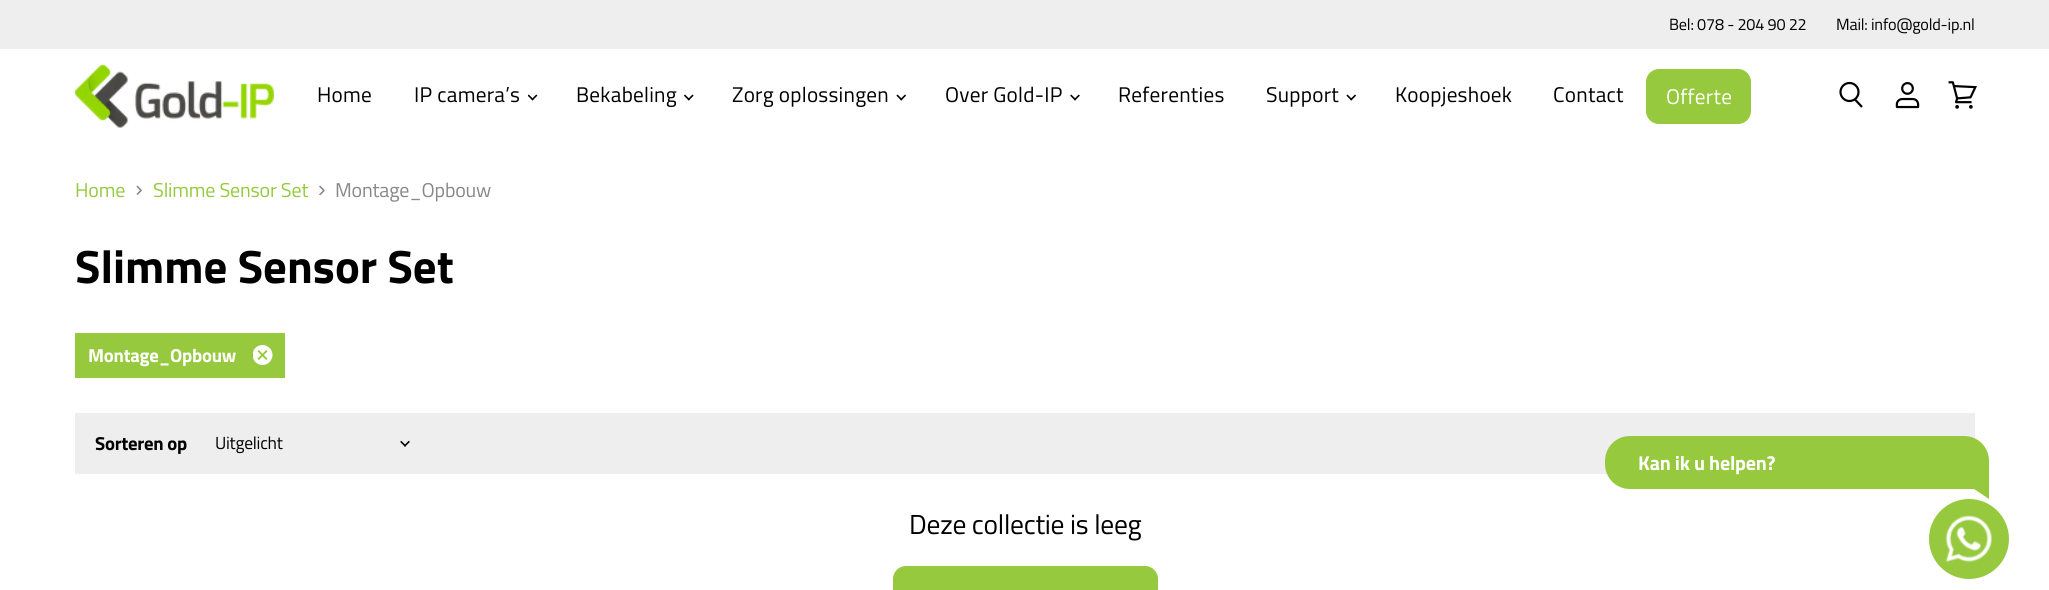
import math
import cairo



def draw_spaced(context, x, y, s, letter, word):
    context.move_to(x, y)
    for ch in s:
        context.show_text(ch)
        context.rel_move_to(letter + word * (ch == ' '), 0)


def rounded_rect(context, x, y, w, h, r):
    context.new_sub_path()
    for i, (u, v) in enumerate([(x + w - r, y + h - r), (x + r, y + h - r), (x + r, y + r), (x + w - r, y + r)]):
        context.arc(u, v, r, i * math.pi / 2, (i + 1) * math.pi / 2)
    context.close_path()


def draw_image(context, path, x, y, w, h):
    context.save()
    context.set_source_surface(cairo.ImageSurface.create_from_png(path), x, y)
    context.rectangle(x, y, w, h)
    context.fill()
    context.restore()


def draw(context):
    context.set_source_rgb(1, 1, 1)
    context.paint()
    context.set_source_rgb(238 / 255, 238 / 255, 238 / 255)
    context.rectangle(0, 0, 2049, 49)
    context.fill()
    draw_image(context, "images/1.png", 75, 64, 199, 64)
    draw_image(context, "images/2.png", 528, 94, 10, 7)
    draw_image(context, "images/3.png", 684, 94, 10, 7)
    draw_image(context, "images/4.png", 896, 94, 10, 7)
    draw_image(context, "images/5.png", 1070, 94, 10, 7)
    draw_image(context, "images/4.png", 1346, 94, 10, 7)
    context.set_source_rgb(150 / 255, 201 / 255, 61 / 255)
    rounded_rect(context, 1646.5, 69.5, 104, 54, 12.5)
    context.fill_preserve()
    context.set_line_width(1)
    context.stroke()
    context.new_path()
    context.move_to(1862, 107)
    context.line_to(1854.5, 99)
    context.set_source_rgb(0, 0, 0)
    context.set_line_width(2.2)
    context.stroke()
    context.arc(1849.5, 92, 9, 0, 2 * math.pi)
    context.stroke()
    draw_image(context, "images/6.png", 1895, 82, 25, 27)
    draw_image(context, "images/7.png", 1948, 81, 29, 28)
    context.new_path()
    context.move_to(137, 194.5)
    context.line_to(141, 190.5)
    context.line_to(137, 186)
    context.set_source_rgb(136 / 255, 136 / 255, 136 / 255)
    context.set_line_width(1.6)
    context.stroke()
    context.save()
    context.new_path()
    context.move_to(318.5, 195)
    context.line_to(318.5, 185)
    context.line_to(324.5, 185)
    context.line_to(324.5, 195)
    context.close_path()
    context.clip()
    context.new_path()
    context.move_to(319.5, 195)
    context.line_to(324, 190.5)
    context.line_to(319.5, 186)
    context.stroke()
    context.restore()
    context.set_source_rgb(150 / 255, 201 / 255, 61 / 255)
    context.rectangle(75, 333, 210, 45)
    context.fill()
    draw_image(context, "images/8.png", 253, 345, 20, 20)
    context.set_source_rgb(238 / 255, 238 / 255, 238 / 255)
    context.rectangle(75, 413, 1900, 61)
    context.fill()
    draw_image(context, "images/9.png", 400, 440, 10, 7)
    context.set_source_rgb(150 / 255, 201 / 255, 61 / 255)
    rounded_rect(context, 893.5, 566.5, 264, 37, 12.5)
    context.fill_preserve()
    context.set_line_width(1)
    context.stroke()
    context.new_path()
    context.move_to(1630, 436)
    context.line_to(1964, 436)
    context.curve_to(1978, 436, 1989, 447, 1989, 461)
    context.line_to(1989, 489)
    context.line_to(1630, 489)
    context.curve_to(1616, 489, 1605, 478, 1605, 464)
    context.line_to(1605, 461)
    context.curve_to(1605, 447, 1616, 436, 1630, 436)
    context.close_path()
    context.fill()
    context.new_path()
    context.move_to(1989, 489)
    context.line_to(1989, 499)
    context.line_to(1974, 489)
    context.close_path()
    context.fill()
    context.arc(1969, 539, 40, 0, 2 * math.pi)
    context.fill()
    draw_image(context, "images/10.png", 1945, 515, 47, 47)
    context.select_font_face("Titillium Web")
    context.set_font_size(16.25)
    context.set_source_rgb(0, 0, 0)
    draw_spaced(context, 1669, 30, "Bel: 078 - 204 90 22", -0.2, 0)
    draw_spaced(context, 1836, 30, "Mail: info@gold-ip.nl", -0.2, 0)
    context.set_font_size(21.25)
    draw_spaced(context, 317, 102, "Home", 0.25, 0)
    draw_spaced(context, 414, 102, "IP camera’s", 0.25, 0)
    draw_spaced(context, 576, 102, "Bekabeling", 0.25, 0)
    draw_spaced(context, 732, 102, "Zorg oplossingen", 0.25, 0)
    draw_spaced(context, 945, 102, "Over Gold-IP", 0.25, 0)
    draw_spaced(context, 1118, 102, "Referenties", 0.25, 0)
    draw_spaced(context, 1266, 102, "Support", 0.25, 0)
    draw_spaced(context, 1395, 102, "Koopjeshoek", 0.25, 0)
    draw_spaced(context, 1553, 102, "Contact", 0.25, 0)
    context.set_source_rgb(1, 1, 1)
    draw_spaced(context, 1666, 104, "Offerte", 0.25, 0)
    context.set_font_size(20)
    context.set_source_rgb(150 / 255, 201 / 255, 61 / 255)
    draw_spaced(context, 75, 197, "Home", -0.2, 0)
    draw_spaced(context, 153, 197, "Slimme Sensor Set", -0.2, 0)
    context.set_source_rgb(136 / 255, 136 / 255, 136 / 255)
    draw_spaced(context, 335, 197, "Montage_Opbouw", -0.2, 0)
    context.select_font_face("Titillium Web", cairo.FontSlant.NORMAL, cairo.FontWeight.BOLD)
    context.set_font_size(46.75)
    context.set_source_rgb(0, 0, 0)
    context.move_to(75, 283)
    context.show_text("Slimme Sensor Set")
    context.set_font_size(18.75)
    context.set_source_rgb(1, 1, 1)
    draw_spaced(context, 88, 362, "Montage_Opbouw", -0.25, 0)
    context.set_source_rgb(0, 0, 0)
    draw_spaced(context, 95, 450, "Sorteren op", -0.25, 0)
    context.select_font_face("Titillium Web")
    context.set_font_size(17.5)
    draw_spaced(context, 215, 449, "Uitgelicht", -0.25, 0)
    context.set_font_size(27.5)
    draw_spaced(context, 909, 534, "Deze collectie is leeg", -0.25, 0)
    context.select_font_face("Titillium Web", cairo.FontSlant.NORMAL, cairo.FontWeight.BOLD)
    context.set_font_size(20)
    context.set_source_rgb(1, 1, 1)
    draw_spaced(context, 1638, 470, "Kan ik u helpen?", -0.2, 0)


surface = cairo.ImageSurface(cairo.Format.RGB24, 2049, 590)
context = cairo.Context(surface)
options = cairo.FontOptions()
options.set_hint_metrics(cairo.HintMetrics.OFF)
options.set_hint_style(cairo.HintStyle.NONE)
context.set_font_options(options)
context.set_miter_limit(4)
draw(context)
surface.write_to_png("out.png")
